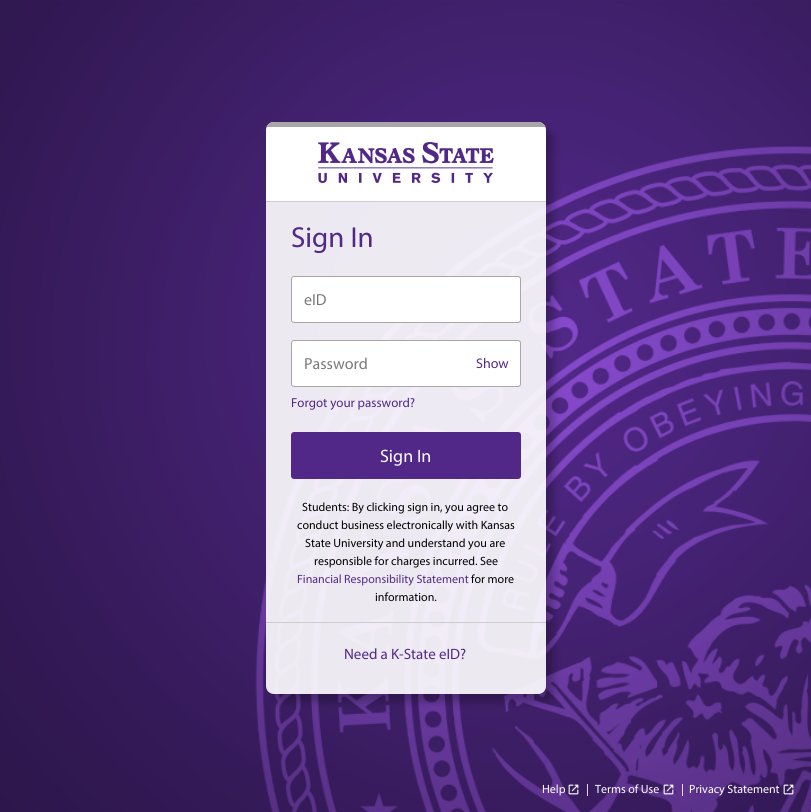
import math
import cairo



def rounded_rect(context, x, y, w, h, r):
    context.new_sub_path()
    for i, (u, v) in enumerate([(x + w - r, y + h - r), (x + r, y + h - r), (x + r, y + r), (x + w - r, y + r)]):
        context.arc(u, v, r, i * math.pi / 2, (i + 1) * math.pi / 2)
    context.close_path()


def draw_shadow(context, x, y, w, h, r, blur, alpha):
    context.push_group_with_content(cairo.Content.ALPHA)
    context.set_operator(cairo.Operator.SOURCE)
    for i in range(15, -16, -2):
        e = blur * i / 6
        if min(w, h) + 2 * e > 0:
            context.set_source_rgba(0, 0, 0, alpha * math.erfc((i - 1) / 8.5) / 2)
            rounded_rect(context, x - e, y - e, w + 2 * e, h + 2 * e, max(0, min(r + e + blur * .6, min(w, h) / 2 + e)))
            context.fill()
    context.mask(context.pop_group())


def draw_image(context, path, x, y, w, h):
    context.save()
    context.set_source_surface(cairo.ImageSurface.create_from_png(path), x, y)
    context.rectangle(x, y, w, h)
    context.fill()
    context.restore()


def draw(context):
    context.set_source_rgb(1, 1, 1)
    context.paint()
    draw_image(context, "images/1.png", 0, 0, 811, 812)
    context.save()
    context.set_fill_rule(cairo.FillRule.EVEN_ODD)
    context.new_path()
    context.move_to(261, 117)
    context.line_to(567, 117)
    context.line_to(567, 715)
    context.line_to(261, 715)
    context.close_path()
    context.move_to(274, 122)
    context.line_to(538, 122)
    context.curve_to(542.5, 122, 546, 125.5, 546, 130)
    context.line_to(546, 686)
    context.curve_to(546, 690.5, 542.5, 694, 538, 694)
    context.line_to(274, 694)
    context.curve_to(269.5, 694, 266, 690.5, 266, 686)
    context.line_to(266, 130)
    context.curve_to(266, 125.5, 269.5, 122, 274, 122)
    context.close_path()
    context.clip()
    context.set_source_rgb(0, 0, 0)
    draw_shadow(context, 274, 130, 280, 572, 8, 4, 0.25)
    context.restore()
    context.set_source_rgb(1, 1, 1)
    context.new_path()
    context.move_to(274, 122)
    context.line_to(538, 122)
    context.curve_to(542.5, 122, 546, 125.5, 546, 130)
    context.line_to(546, 202)
    context.line_to(266, 202)
    context.line_to(266, 130)
    context.curve_to(266, 125.5, 269.5, 122, 274, 122)
    context.close_path()
    context.fill()
    context.set_source_rgb(204 / 255, 204 / 255, 204 / 255)
    context.rectangle(266, 201, 280, 1)
    context.fill()
    context.save()
    context.new_path()
    context.move_to(274, 122)
    context.line_to(538, 122)
    context.curve_to(542.5, 122, 546, 125.5, 546, 130)
    context.line_to(546, 201)
    context.line_to(266, 201)
    context.line_to(266, 130)
    context.curve_to(266, 125.5, 269.5, 122, 274, 122)
    context.close_path()
    context.clip()
    context.set_source_rgb(167 / 255, 167 / 255, 167 / 255)
    context.rectangle(266, 122, 280, 5)
    context.fill()
    context.restore()
    draw_image(context, "images/2.png", 318, 142, 176, 41)
    context.set_source_rgba(1, 1, 1, 0.9)
    context.new_path()
    context.move_to(266, 202)
    context.line_to(546, 202)
    context.line_to(546, 686)
    context.curve_to(546, 690.5, 542.5, 694, 538, 694)
    context.line_to(274, 694)
    context.curve_to(269.5, 694, 266, 690.5, 266, 686)
    context.close_path()
    context.fill()
    context.set_source_rgb(1, 1, 1)
    rounded_rect(context, 291.5, 276.5, 229, 46, 2.5)
    context.fill_preserve()
    context.set_source_rgb(167 / 255, 167 / 255, 167 / 255)
    context.set_line_width(1)
    context.stroke()
    context.set_source_rgb(1, 1, 1)
    rounded_rect(context, 291.5, 340.5, 229, 46, 2.5)
    context.fill_preserve()
    context.set_source_rgb(167 / 255, 167 / 255, 167 / 255)
    context.stroke()
    context.set_source_rgb(81 / 255, 40 / 255, 136 / 255)
    rounded_rect(context, 291, 432, 230, 47, 3)
    context.fill()
    context.set_source_rgb(204 / 255, 204 / 255, 204 / 255)
    context.rectangle(266, 622, 280, 1)
    context.fill()
    draw_image(context, "images/3.png", 568, 784, 11, 11)
    draw_image(context, "images/4.png", 663, 784, 11, 11)
    draw_image(context, "images/5.png", 783, 784, 11, 11)
    context.select_font_face("Myriad")
    context.set_font_size(29)
    context.set_source_rgb(81 / 255, 40 / 255, 136 / 255)
    context.move_to(291, 247)
    context.show_text("Sign In")
    context.set_font_size(16)
    context.set_source_rgb(122 / 255, 121 / 255, 121 / 255)
    context.move_to(304, 305)
    context.show_text("eID")
    context.move_to(304, 369)
    context.show_text("Password")
    context.set_font_size(14)
    context.set_source_rgb(81 / 255, 40 / 255, 136 / 255)
    context.move_to(476, 368)
    context.show_text("Show")
    context.set_font_size(13)
    context.move_to(291, 407)
    context.show_text("Forgot your password?")
    context.set_font_size(18)
    context.set_source_rgb(1, 1, 1)
    context.move_to(380, 462)
    context.show_text("Sign In")
    context.set_font_size(12)
    context.set_source_rgb(0, 0, 0)
    context.move_to(302, 511)
    context.show_text("Students: By clicking sign in, you agree to")
    context.move_to(297, 529)
    context.show_text("conduct business electronically with Kansas")
    context.move_to(305, 547)
    context.show_text("State University and understand you are")
    context.move_to(314, 565)
    context.show_text("responsible for charges incurred. See")
    context.set_source_rgb(81 / 255, 40 / 255, 136 / 255)
    context.move_to(297, 583)
    context.show_text("Financial Responsibility Statement")
    context.set_source_rgb(0, 0, 0)
    context.move_to(471, 583)
    context.show_text("for more")
    context.move_to(375, 601)
    context.show_text("information.")
    context.set_font_size(15)
    context.set_source_rgb(81 / 255, 40 / 255, 136 / 255)
    context.move_to(344, 659)
    context.show_text("Need a K-State eID?")
    context.set_font_size(12)
    context.set_source_rgb(1, 1, 1)
    context.move_to(542, 793)
    context.show_text("Help")
    context.move_to(586, 793)
    context.show_text("|")
    context.move_to(595, 793)
    context.show_text("Terms of Use")
    context.move_to(681, 793)
    context.show_text("|")
    context.move_to(689, 793)
    context.show_text("Privacy Statement")


surface = cairo.ImageSurface(cairo.Format.RGB24, 811, 812)
context = cairo.Context(surface)
options = cairo.FontOptions()
options.set_hint_metrics(cairo.HintMetrics.OFF)
options.set_hint_style(cairo.HintStyle.NONE)
context.set_font_options(options)
context.set_miter_limit(4)
draw(context)
surface.write_to_png("out.png")
